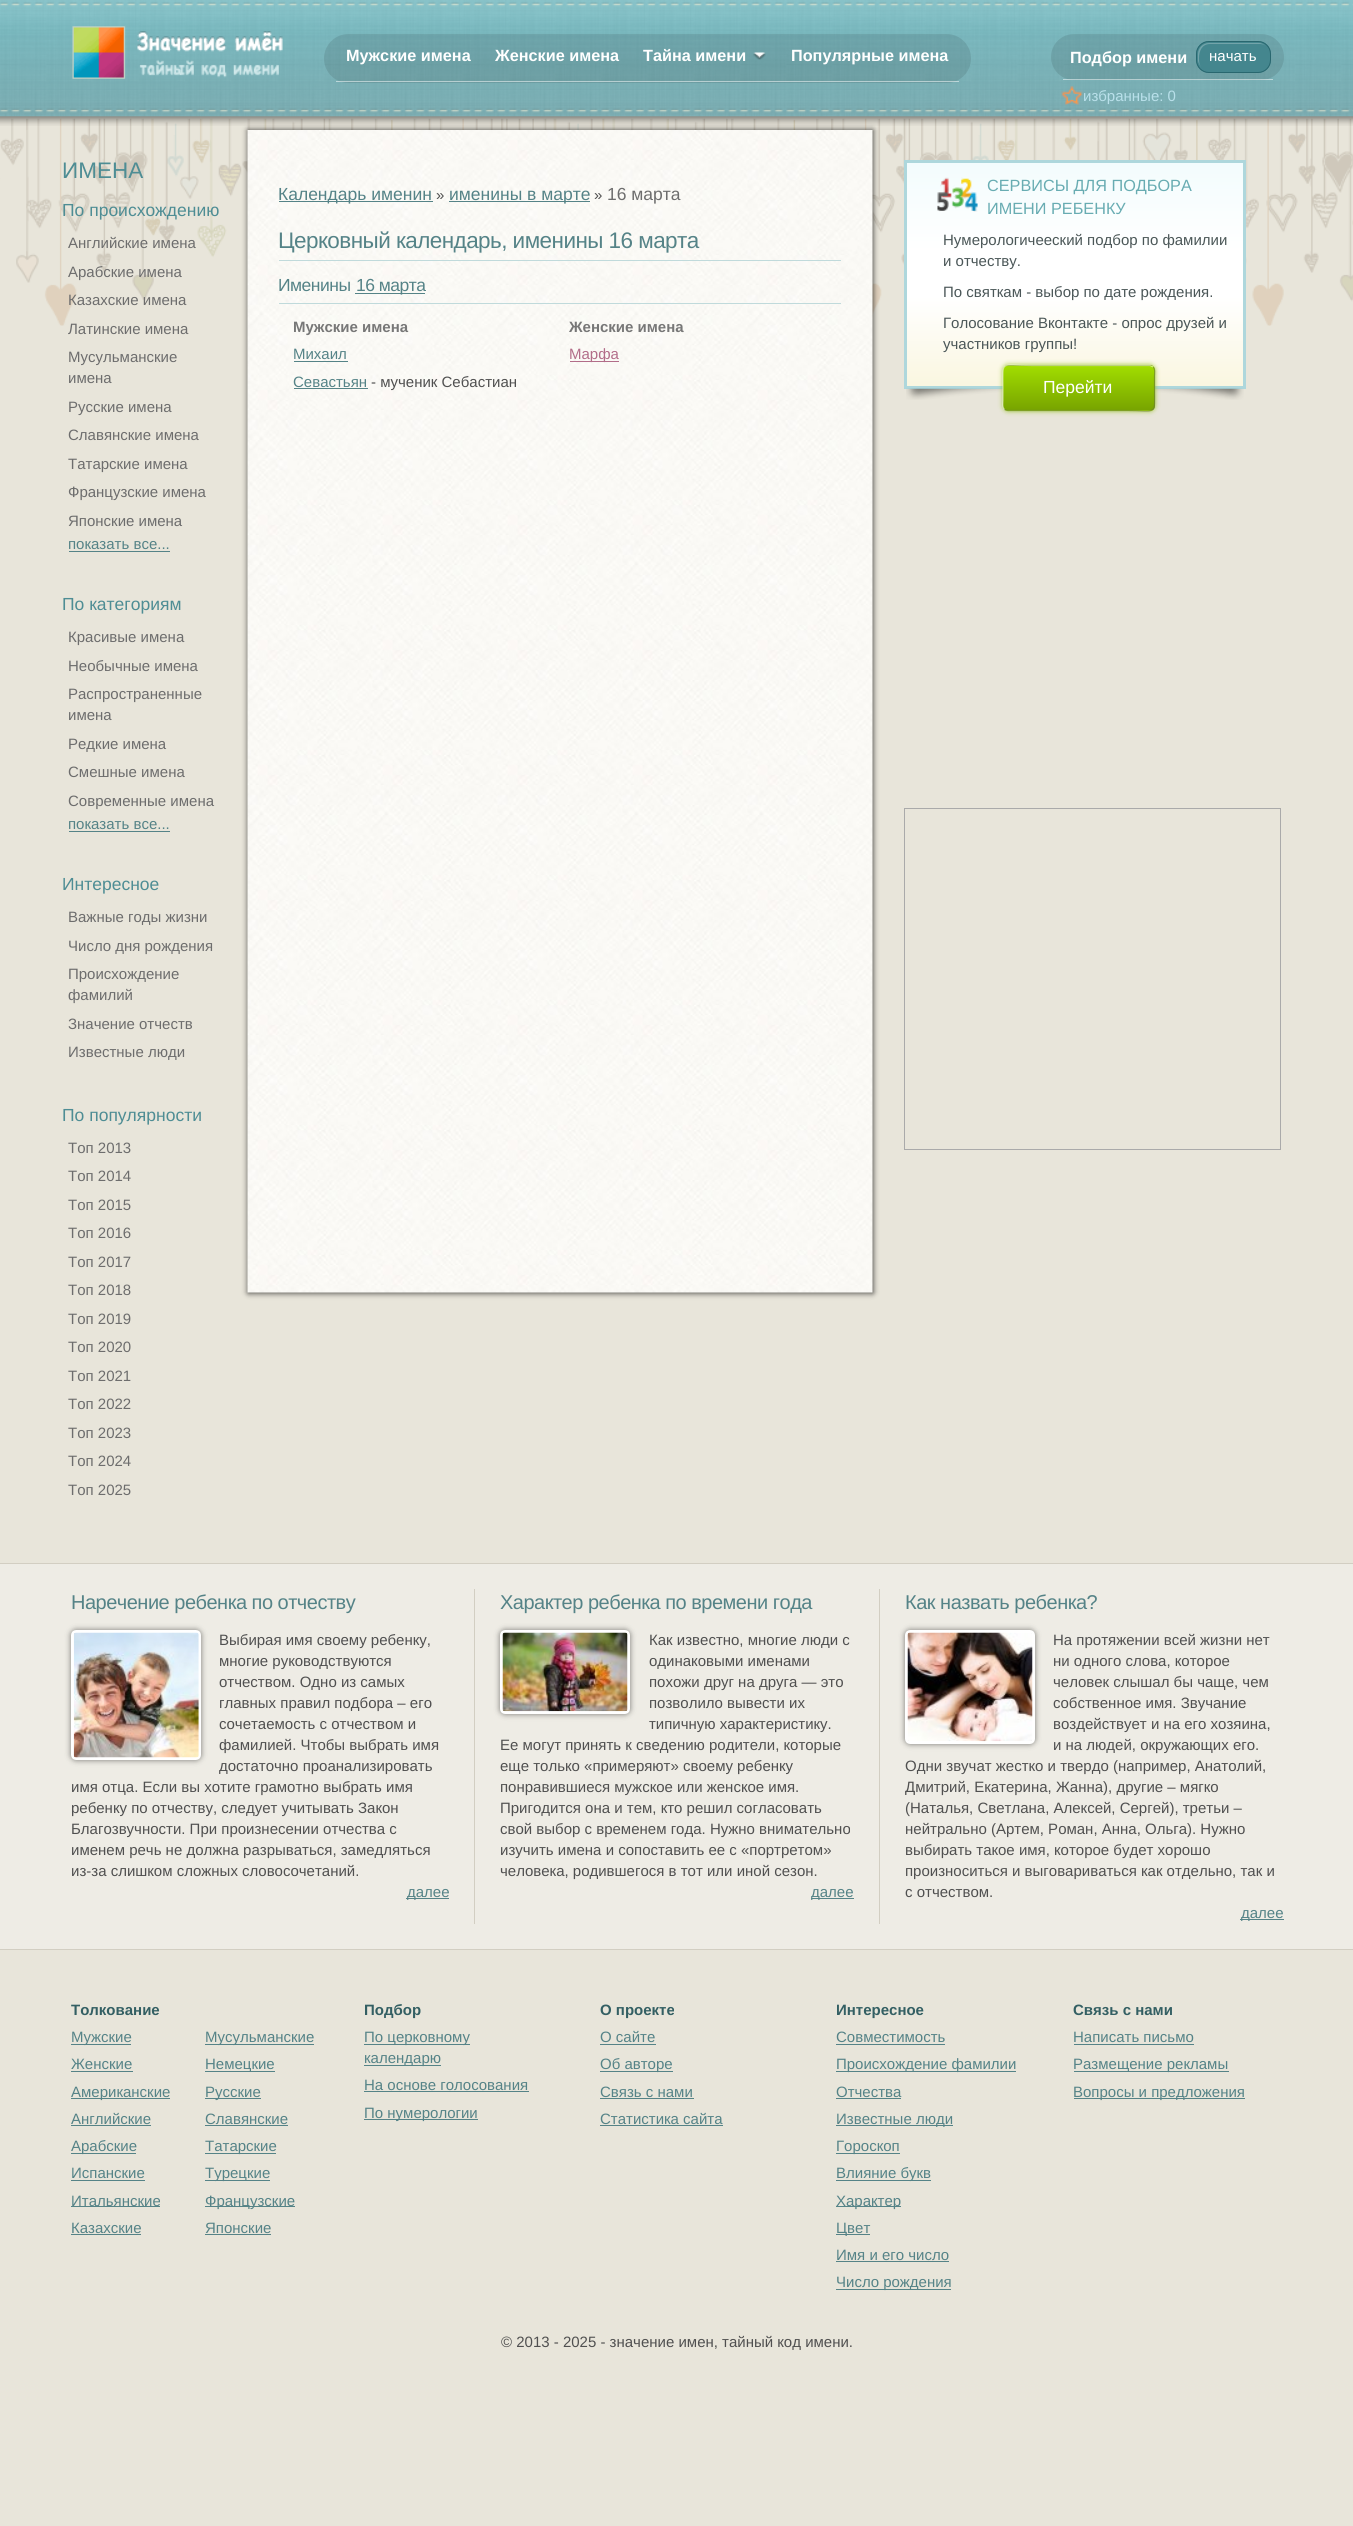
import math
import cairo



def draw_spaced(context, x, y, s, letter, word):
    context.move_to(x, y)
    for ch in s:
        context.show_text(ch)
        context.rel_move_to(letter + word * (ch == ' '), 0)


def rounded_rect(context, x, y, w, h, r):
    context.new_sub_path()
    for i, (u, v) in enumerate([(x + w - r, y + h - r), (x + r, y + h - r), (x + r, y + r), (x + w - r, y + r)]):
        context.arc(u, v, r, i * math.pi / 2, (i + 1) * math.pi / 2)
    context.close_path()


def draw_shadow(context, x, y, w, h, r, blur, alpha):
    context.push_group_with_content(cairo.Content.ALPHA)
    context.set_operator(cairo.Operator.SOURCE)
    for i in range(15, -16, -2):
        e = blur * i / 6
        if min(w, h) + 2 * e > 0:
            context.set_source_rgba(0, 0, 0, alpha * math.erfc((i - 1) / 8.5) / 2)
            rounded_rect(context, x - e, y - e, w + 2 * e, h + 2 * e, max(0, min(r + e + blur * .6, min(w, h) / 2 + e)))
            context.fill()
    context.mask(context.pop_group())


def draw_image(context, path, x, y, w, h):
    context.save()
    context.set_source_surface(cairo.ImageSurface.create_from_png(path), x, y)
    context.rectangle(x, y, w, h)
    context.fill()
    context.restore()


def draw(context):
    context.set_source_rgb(232 / 255, 229 / 255, 218 / 255)
    context.paint()
    draw_image(context, "images/1.png", 0, 118, 1353, 208)
    context.set_source_rgb(0, 0, 0)
    draw_shadow(context, 248, 130, 625, 1163, 0, 3, 0.75)
    draw_image(context, "images/2.png", 0, 0, 1353, 126)
    draw_image(context, "images/3.png", 72, 26, 211, 53)
    context.set_source_rgba(0, 0, 0, 0.1)
    rounded_rect(context, 324, 34, 647, 49, 24.5)
    context.fill()
    context.set_source_rgba(1, 1, 1, 0.5)
    context.rectangle(336, 81, 623, 1)
    context.fill()
    draw_image(context, "images/4.png", 753, 52, 13, 8)
    context.set_source_rgba(0, 0, 0, 0.1)
    rounded_rect(context, 1051, 34, 233, 46, 23)
    context.fill()
    context.set_source_rgba(1, 1, 1, 0.5)
    context.rectangle(1063, 79, 210, 1)
    context.fill()
    context.set_source_rgb(68 / 255, 134 / 255, 142 / 255)
    rounded_rect(context, 1196, 41, 75, 32, 13)
    context.fill()
    context.set_source_rgb(115 / 255, 164 / 255, 170 / 255)
    context.new_path()
    context.move_to(1210, 44)
    context.line_to(1260, 44)
    context.curve_to(1263, 44, 1265, 45, 1267, 47)
    context.curve_to(1265, 45, 1262, 43, 1259, 43)
    context.line_to(1209, 43)
    context.curve_to(1203, 43, 1198, 48, 1198, 54)
    context.line_to(1198, 60)
    context.curve_to(1198, 63, 1200, 66, 1202, 68)
    context.curve_to(1199, 65, 1199, 62, 1199, 58)
    context.curve_to(1199, 51, 1202, 44, 1210, 44)
    context.close_path()
    context.fill()
    rounded_rect(context, 1196.5, 41.5, 74, 31, 12.5)
    context.set_source_rgb(41 / 255, 103 / 255, 111 / 255)
    context.set_line_width(1)
    context.stroke()
    draw_image(context, "images/5.png", 1061, 86, 22, 19)
    draw_image(context, "images/6.png", 247, 130, 626, 1163)
    context.set_source_rgb(85 / 255, 131 / 255, 135 / 255)
    context.rectangle(69, 551, 101, 1)
    context.fill()
    context.rectangle(69, 831, 101, 1)
    context.fill()
    context.rectangle(279, 201, 154, 1)
    context.fill()
    context.rectangle(449, 201, 141, 1)
    context.fill()
    context.set_source_rgb(192 / 255, 218 / 255, 219 / 255)
    context.rectangle(279, 260, 562, 1)
    context.fill()
    context.rectangle(279, 303, 562, 1)
    context.fill()
    context.set_source_rgb(85 / 255, 131 / 255, 135 / 255)
    context.rectangle(355, 293, 70, 1)
    context.fill()
    context.rectangle(294, 361, 54, 1)
    context.fill()
    context.rectangle(294, 388, 74, 1)
    context.fill()
    context.set_source_rgb(178 / 255, 109 / 255, 137 / 255)
    context.rectangle(570, 361, 49, 1)
    context.fill()
    gradient = cairo.LinearGradient(1075, 163, 1075, 386)
    gradient.add_color_stop_rgba(0, 243 / 255, 252 / 255, 253 / 255, 1)
    gradient.add_color_stop_rgba(0.4, 1, 1, 1, 1)
    gradient.add_color_stop_rgba(0.6, 1, 1, 1, 1)
    gradient.add_color_stop_rgba(1, 250 / 255, 246 / 255, 224 / 255, 1)
    context.set_source(gradient)
    context.rectangle(907, 163, 336, 223)
    context.fill()
    context.rectangle(905.5, 161.5, 339, 226)
    context.set_source_rgb(174 / 255, 215 / 255, 220 / 255)
    context.set_line_width(3)
    context.stroke()
    draw_image(context, "images/7.png", 937, 177, 41, 35)
    draw_image(context, "images/8.png", 906, 388, 338, 12)
    context.set_source_rgb(153 / 255, 195 / 255, 40 / 255)
    draw_shadow(context, 1003, 365, 152, 46, 5, 2.5, 1)
    context.save()
    rounded_rect(context, 1003, 365, 152, 46, 5)
    context.clip()
    gradient = cairo.LinearGradient(1079, 323, 1079, 366)
    gradient.add_color_stop_rgba(0, 161 / 255, 221 / 255, 0, 1)
    gradient.add_color_stop_rgba(1, 120 / 255, 164 / 255, 0, 1)
    context.set_source(gradient)
    context.rectangle(1003, 365, 152, 1)
    context.fill()
    gradient = cairo.LinearGradient(1079, 366, 1079, 410)
    gradient.add_color_stop_rgba(0, 161 / 255, 221 / 255, 0, 1)
    gradient.add_color_stop_rgba(1, 120 / 255, 164 / 255, 0, 1)
    context.set_source(gradient)
    context.rectangle(1003, 366, 152, 44)
    context.fill()
    gradient = cairo.LinearGradient(1079, 410, 1079, 454)
    gradient.add_color_stop_rgba(0, 161 / 255, 221 / 255, 0, 1)
    gradient.add_color_stop_rgba(1, 120 / 255, 164 / 255, 0, 1)
    context.set_source(gradient)
    context.rectangle(1003, 410, 152, 1)
    context.fill()
    context.restore()
    context.new_path()
    context.move_to(1153, 367)
    context.curve_to(1155.5, 369, 1154.5, 373.5, 1154.5, 376)
    context.line_to(1154.5, 388)
    context.curve_to(1154.5, 416.5, 1158, 410.5, 1126, 410.5)
    context.line_to(1007.5, 410.5)
    context.line_to(1004.5, 409.5)
    context.set_source_rgba(105 / 255, 121 / 255, 61 / 255, 0.6)
    context.set_line_width(1.2)
    context.stroke()
    context.new_path()
    context.move_to(1004.5, 409.5)
    context.curve_to(1002, 407, 1003, 402.5, 1003, 400)
    context.line_to(1003, 388)
    context.curve_to(1003, 359.5, 999.5, 365.5, 1031, 365.5)
    context.line_to(1150, 365.5)
    context.line_to(1153, 367)
    context.set_source_rgba(1, 1, 1, 0.5)
    context.stroke()
    context.rectangle(904.5, 808.5, 376, 341)
    context.set_source_rgb(170 / 255, 170 / 255, 170 / 255)
    context.set_line_width(1)
    context.stroke()
    context.set_source_rgb(238 / 255, 236 / 255, 229 / 255)
    context.rectangle(0, 1564, 1353, 385)
    context.fill()
    context.set_source_rgb(210 / 255, 206 / 255, 194 / 255)
    context.rectangle(0, 1563, 1353, 1)
    context.fill()
    context.rectangle(0, 1949, 1353, 1)
    context.fill()
    context.rectangle(474, 1589, 1, 335)
    context.fill()
    context.set_source_rgb(0, 0, 0)
    draw_shadow(context, 71, 1630, 130, 130, 5, 3, 0.5)
    rounded_rect(context, 72.5, 1631.5, 127, 127, 3.5)
    context.set_source_rgb(1, 1, 1)
    context.set_line_width(3)
    context.stroke()
    draw_image(context, "images/9.png", 73, 1632, 126, 126)
    context.set_source_rgb(85 / 255, 131 / 255, 135 / 255)
    context.rectangle(406, 1898, 43, 1)
    context.fill()
    context.set_source_rgb(210 / 255, 206 / 255, 194 / 255)
    context.rectangle(879, 1589, 1, 335)
    context.fill()
    context.set_source_rgb(0, 0, 0)
    draw_shadow(context, 500, 1630, 130, 84, 5, 3, 0.5)
    rounded_rect(context, 501.5, 1631.5, 127, 81, 3.5)
    context.set_source_rgb(1, 1, 1)
    context.stroke()
    draw_image(context, "images/10.png", 502, 1632, 126, 80)
    context.set_source_rgb(85 / 255, 131 / 255, 135 / 255)
    context.rectangle(811, 1898, 43, 1)
    context.fill()
    context.set_source_rgb(0, 0, 0)
    draw_shadow(context, 905, 1630, 130, 114, 5, 3, 0.5)
    rounded_rect(context, 906.5, 1631.5, 127, 111, 3.5)
    context.set_source_rgb(1, 1, 1)
    context.stroke()
    draw_image(context, "images/11.png", 907, 1632, 126, 110)
    context.set_source_rgb(85 / 255, 131 / 255, 135 / 255)
    context.rectangle(1240, 1919, 44, 1)
    context.fill()
    context.rectangle(71, 2044, 60, 1)
    context.fill()
    context.rectangle(205, 2044, 109, 1)
    context.fill()
    context.rectangle(71, 2071, 62, 1)
    context.fill()
    context.rectangle(205, 2071, 70, 1)
    context.fill()
    context.rectangle(71, 2098, 99, 1)
    context.fill()
    context.rectangle(205, 2098, 56, 1)
    context.fill()
    context.rectangle(71, 2125, 80, 1)
    context.fill()
    context.rectangle(205, 2125, 83, 1)
    context.fill()
    context.rectangle(71, 2153, 65, 1)
    context.fill()
    context.rectangle(205, 2153, 71, 1)
    context.fill()
    context.rectangle(71, 2180, 74, 1)
    context.fill()
    context.rectangle(205, 2180, 65, 1)
    context.fill()
    context.rectangle(71, 2206, 89, 1)
    context.fill()
    context.rectangle(205, 2206, 90, 1)
    context.fill()
    context.rectangle(71, 2234, 70, 1)
    context.fill()
    context.rectangle(205, 2234, 66, 1)
    context.fill()
    context.rectangle(364, 2044, 106, 1)
    context.fill()
    context.rectangle(364, 2065, 77, 1)
    context.fill()
    context.rectangle(364, 2091, 165, 1)
    context.fill()
    context.rectangle(364, 2119, 114, 1)
    context.fill()
    context.rectangle(600, 2044, 56, 1)
    context.fill()
    context.rectangle(600, 2071, 73, 1)
    context.fill()
    context.rectangle(600, 2098, 94, 1)
    context.fill()
    context.rectangle(600, 2125, 123, 1)
    context.fill()
    context.rectangle(836, 2044, 109, 1)
    context.fill()
    context.rectangle(836, 2071, 180, 1)
    context.fill()
    context.rectangle(836, 2098, 65, 1)
    context.fill()
    context.rectangle(836, 2125, 117, 1)
    context.fill()
    context.rectangle(836, 2153, 64, 1)
    context.fill()
    context.rectangle(836, 2180, 95, 1)
    context.fill()
    context.rectangle(836, 2206, 65, 1)
    context.fill()
    context.rectangle(836, 2234, 34, 1)
    context.fill()
    context.rectangle(836, 2261, 113, 1)
    context.fill()
    context.rectangle(836, 2289, 115, 1)
    context.fill()
    context.rectangle(1074, 2044, 120, 1)
    context.fill()
    context.rectangle(1074, 2071, 155, 1)
    context.fill()
    context.rectangle(1074, 2098, 171, 1)
    context.fill()
    context.select_font_face("Liberation Sans", cairo.FontSlant.NORMAL, cairo.FontWeight.BOLD)
    context.set_font_size(16.25)
    context.set_source_rgb(1, 1, 1)
    context.move_to(346, 61)
    context.show_text("Мужские имена")
    context.move_to(495, 61)
    context.show_text("Женские имена")
    context.move_to(643, 61)
    context.show_text("Тайна имени")
    context.move_to(791, 61)
    context.show_text("Популярные имена")
    context.move_to(1070, 63)
    context.show_text("Подбор имени")
    context.select_font_face("Liberation Sans")
    context.set_font_size(15)
    context.move_to(1209, 61)
    context.show_text("начать")
    context.set_source_rgb(185 / 255, 224 / 255, 234 / 255)
    context.move_to(1083, 101)
    context.show_text("избранные: 0")
    context.set_font_size(22.5)
    context.set_source_rgb(78 / 255, 141 / 255, 148 / 255)
    context.move_to(62, 178)
    context.show_text("ИМЕНА")
    context.set_font_size(17.5)
    context.move_to(62, 216)
    context.show_text("По происхождению")
    context.set_font_size(15)
    context.set_source_rgb(109 / 255, 109 / 255, 109 / 255)
    context.move_to(68, 248)
    context.show_text("Английские имена")
    context.move_to(68, 277)
    context.show_text("Арабские имена")
    context.move_to(68, 305)
    context.show_text("Казахские имена")
    context.move_to(68, 334)
    context.show_text("Латинские имена")
    context.move_to(68, 362)
    context.show_text("Мусульманские")
    context.move_to(68, 383)
    context.show_text("имена")
    context.move_to(68, 412)
    context.show_text("Русские имена")
    context.move_to(68, 440)
    context.show_text("Славянские имена")
    context.move_to(68, 469)
    context.show_text("Татарские имена")
    context.move_to(68, 497)
    context.show_text("Французские имена")
    context.move_to(68, 526)
    context.show_text("Японские имена")
    context.set_source_rgb(85 / 255, 131 / 255, 135 / 255)
    context.move_to(68, 549)
    context.show_text("показать все...")
    context.set_font_size(17.5)
    context.set_source_rgb(78 / 255, 141 / 255, 148 / 255)
    context.move_to(62, 610)
    context.show_text("По категориям")
    context.set_font_size(15)
    context.set_source_rgb(109 / 255, 109 / 255, 109 / 255)
    context.move_to(68, 642)
    context.show_text("Красивые имена")
    context.move_to(68, 671)
    context.show_text("Необычные имена")
    context.move_to(68, 699)
    context.show_text("Распространенные")
    context.move_to(68, 720)
    context.show_text("имена")
    context.move_to(68, 749)
    context.show_text("Редкие имена")
    context.move_to(68, 777)
    context.show_text("Смешные имена")
    context.move_to(68, 806)
    context.show_text("Современные имена")
    context.set_source_rgb(85 / 255, 131 / 255, 135 / 255)
    context.move_to(68, 829)
    context.show_text("показать все...")
    context.set_font_size(17.5)
    context.set_source_rgb(78 / 255, 141 / 255, 148 / 255)
    context.move_to(62, 890)
    context.show_text("Интересное")
    context.set_font_size(15)
    context.set_source_rgb(109 / 255, 109 / 255, 109 / 255)
    context.move_to(68, 922)
    context.show_text("Важные годы жизни")
    context.move_to(68, 951)
    context.show_text("Число дня рождения")
    context.move_to(68, 979)
    context.show_text("Происхождение")
    context.move_to(68, 1000)
    context.show_text("фамилий")
    context.move_to(68, 1029)
    context.show_text("Значение отчеств")
    context.move_to(68, 1057)
    context.show_text("Известные люди")
    context.set_font_size(17.5)
    context.set_source_rgb(78 / 255, 141 / 255, 148 / 255)
    context.move_to(62, 1121)
    context.show_text("По популярности")
    context.set_font_size(15)
    context.set_source_rgb(109 / 255, 109 / 255, 109 / 255)
    context.move_to(68, 1153)
    context.show_text("Топ 2013")
    context.move_to(68, 1181)
    context.show_text("Топ 2014")
    context.move_to(68, 1210)
    context.show_text("Топ 2015")
    context.move_to(68, 1238)
    context.show_text("Топ 2016")
    context.move_to(68, 1267)
    context.show_text("Топ 2017")
    context.move_to(68, 1295)
    context.show_text("Топ 2018")
    context.move_to(68, 1324)
    context.show_text("Топ 2019")
    context.move_to(68, 1352)
    context.show_text("Топ 2020")
    context.move_to(68, 1381)
    context.show_text("Топ 2021")
    context.move_to(68, 1409)
    context.show_text("Топ 2022")
    context.move_to(68, 1438)
    context.show_text("Топ 2023")
    context.move_to(68, 1466)
    context.show_text("Топ 2024")
    context.move_to(68, 1495)
    context.show_text("Топ 2025")
    context.set_font_size(17.5)
    context.set_source_rgb(85 / 255, 131 / 255, 135 / 255)
    context.move_to(278, 200)
    context.show_text("Календарь именин")
    context.set_font_size(15)
    context.set_source_rgb(80 / 255, 80 / 255, 80 / 255)
    context.move_to(436, 200)
    context.show_text("»")
    context.set_font_size(17.5)
    context.set_source_rgb(85 / 255, 131 / 255, 135 / 255)
    context.move_to(449, 200)
    context.show_text("именины в марте")
    context.set_font_size(15)
    context.set_source_rgb(80 / 255, 80 / 255, 80 / 255)
    context.move_to(594, 200)
    context.show_text("»")
    context.set_font_size(17.5)
    context.set_source_rgb(109 / 255, 109 / 255, 109 / 255)
    context.move_to(607, 200)
    context.show_text("16 марта")
    context.set_font_size(22.5)
    context.set_source_rgb(85 / 255, 131 / 255, 135 / 255)
    draw_spaced(context, 278, 248, "Церковный календарь, именины 16 марта", -0.55, 0)
    context.set_font_size(17.5)
    draw_spaced(context, 278, 291, "Именины", -0.5, 0)
    draw_spaced(context, 356, 291, "16 марта", -0.5, 0)
    context.select_font_face("Liberation Sans", cairo.FontSlant.NORMAL, cairo.FontWeight.BOLD)
    context.set_font_size(15)
    context.set_source_rgb(119 / 255, 119 / 255, 119 / 255)
    context.move_to(293, 332)
    context.show_text("Мужские имена")
    context.select_font_face("Liberation Sans")
    context.set_source_rgb(85 / 255, 131 / 255, 135 / 255)
    context.move_to(293, 359)
    context.show_text("Михаил")
    context.move_to(293, 387)
    context.show_text("Севастьян")
    context.set_source_rgb(80 / 255, 80 / 255, 80 / 255)
    context.move_to(371, 387)
    context.show_text("- мученик Себастиан")
    context.select_font_face("Liberation Sans", cairo.FontSlant.NORMAL, cairo.FontWeight.BOLD)
    context.set_source_rgb(119 / 255, 119 / 255, 119 / 255)
    context.move_to(569, 332)
    context.show_text("Женские имена")
    context.select_font_face("Liberation Sans")
    context.set_source_rgb(178 / 255, 109 / 255, 137 / 255)
    context.move_to(569, 359)
    context.show_text("Марфа")
    context.set_font_size(16.25)
    context.set_source_rgb(104 / 255, 172 / 255, 178 / 255)
    context.move_to(987, 191)
    context.show_text("СЕРВИСЫ ДЛЯ ПОДБОРА")
    context.move_to(987, 214)
    context.show_text("ИМЕНИ РЕБЕНКУ")
    context.set_font_size(15)
    context.set_source_rgb(75 / 255, 87 / 255, 88 / 255)
    context.move_to(943, 245)
    context.show_text("Нумерологичееский подбор по фамилии")
    context.move_to(943, 266)
    context.show_text("и отчеству.")
    context.move_to(943, 297)
    context.show_text("По святкам - выбор по дате рождения.")
    context.move_to(943, 328)
    context.show_text("Голосование Вконтакте - опрос друзей и")
    context.move_to(943, 349)
    context.show_text("участников группы!")
    context.set_font_size(17.5)
    context.set_source_rgb(1, 1, 1)
    context.move_to(1043, 393)
    context.show_text("Перейти")
    context.set_font_size(20)
    context.set_source_rgb(85 / 255, 131 / 255, 135 / 255)
    draw_spaced(context, 71, 1609, "Наречение ребенка по отчеству", -0.5, 0)
    context.set_font_size(15)
    context.set_source_rgb(80 / 255, 80 / 255, 80 / 255)
    context.move_to(219, 1645)
    context.show_text("Выбирая имя своему ребенку,")
    context.move_to(219, 1666)
    context.show_text("многие руководствуются")
    context.move_to(219, 1687)
    context.show_text("отчеством. Одно из самых")
    context.move_to(219, 1708)
    context.show_text("главных правил подбора – его")
    context.move_to(219, 1729)
    context.show_text("сочетаемость с отчеством и")
    context.move_to(219, 1750)
    context.show_text("фамилией. Чтобы выбрать имя")
    context.move_to(219, 1771)
    context.show_text("достаточно проанализировать")
    context.move_to(71, 1792)
    context.show_text("имя отца. Если вы хотите грамотно выбрать имя")
    context.move_to(71, 1813)
    context.show_text("ребенку по отчеству, следует учитывать Закон")
    context.move_to(71, 1834)
    context.show_text("Благозвучности. При произнесении отчества с")
    context.move_to(71, 1855)
    context.show_text("именем речь не должна разрываться, замедляться")
    context.move_to(71, 1876)
    context.show_text("из-за слишком сложных словосочетаний.")
    context.set_source_rgb(85 / 255, 131 / 255, 135 / 255)
    context.move_to(407, 1897)
    context.show_text("далее")
    context.set_font_size(20)
    draw_spaced(context, 500, 1609, "Характер ребенка по времени года", -0.5, 0)
    context.set_font_size(15)
    context.set_source_rgb(80 / 255, 80 / 255, 80 / 255)
    context.move_to(649, 1645)
    context.show_text("Как известно, многие люди с")
    context.move_to(649, 1666)
    context.show_text("одинаковыми именами")
    context.move_to(649, 1687)
    context.show_text("похожи друг на друга — это")
    context.move_to(649, 1708)
    context.show_text("позволило вывести их")
    context.move_to(649, 1729)
    context.show_text("типичную характеристику.")
    context.move_to(500, 1750)
    context.show_text("Ее могут принять к сведению родители, которые")
    context.move_to(500, 1771)
    context.show_text("еще только «примеряют» своему ребенку")
    context.move_to(500, 1792)
    context.show_text("понравившиеся мужское или женское имя.")
    context.move_to(500, 1813)
    context.show_text("Пригодится она и тем, кто решил согласовать")
    context.move_to(500, 1834)
    context.show_text("свой выбор с временем года. Нужно внимательно")
    context.move_to(500, 1855)
    context.show_text("изучить имена и сопоставить ее с «портретом»")
    context.move_to(500, 1876)
    context.show_text("человека, родившегося в тот или иной сезон.")
    context.set_source_rgb(85 / 255, 131 / 255, 135 / 255)
    context.move_to(811, 1897)
    context.show_text("далее")
    context.set_font_size(20)
    draw_spaced(context, 905, 1609, "Как назвать ребенка?", -0.5, 0)
    context.set_font_size(15)
    context.set_source_rgb(80 / 255, 80 / 255, 80 / 255)
    context.move_to(1053, 1645)
    context.show_text("На протяжении всей жизни нет")
    context.move_to(1053, 1666)
    context.show_text("ни одного слова, которое")
    context.move_to(1053, 1687)
    context.show_text("человек слышал бы чаще, чем")
    context.move_to(1053, 1708)
    context.show_text("собственное имя. Звучание")
    context.move_to(1053, 1729)
    context.show_text("воздействует и на его хозяина,")
    context.move_to(1053, 1750)
    context.show_text("и на людей, окружающих его.")
    context.move_to(905, 1771)
    context.show_text("Одни звучат жестко и твердо (например, Анатолий,")
    context.move_to(905, 1792)
    context.show_text("Дмитрий, Екатерина, Жанна), другие – мягко")
    context.move_to(905, 1813)
    context.show_text("(Наталья, Светлана, Алексей, Сергей), третьи –")
    context.move_to(905, 1834)
    context.show_text("нейтрально (Артем, Роман, Анна, Ольга). Нужно")
    context.move_to(905, 1855)
    context.show_text("выбирать такое имя, которое будет хорошо")
    context.move_to(905, 1876)
    context.show_text("произноситься и выговариваться как отдельно, так и")
    context.move_to(905, 1897)
    context.show_text("с отчеством.")
    context.set_source_rgb(85 / 255, 131 / 255, 135 / 255)
    context.move_to(1241, 1918)
    context.show_text("далее")
    context.select_font_face("Liberation Sans", cairo.FontSlant.NORMAL, cairo.FontWeight.BOLD)
    context.set_source_rgb(51 / 255, 95 / 255, 99 / 255)
    context.move_to(71, 2015)
    context.show_text("Толкование")
    context.select_font_face("Liberation Sans")
    context.set_source_rgb(85 / 255, 131 / 255, 135 / 255)
    context.move_to(71, 2042)
    context.show_text("Мужские")
    context.move_to(205, 2042)
    context.show_text("Мусульманские")
    context.move_to(71, 2069)
    context.show_text("Женские")
    context.move_to(205, 2069)
    context.show_text("Немецкие")
    context.move_to(71, 2097)
    context.show_text("Американские")
    context.move_to(205, 2097)
    context.show_text("Русские")
    context.move_to(71, 2124)
    context.show_text("Английские")
    context.move_to(205, 2124)
    context.show_text("Славянские")
    context.move_to(71, 2151)
    context.show_text("Арабские")
    context.move_to(205, 2151)
    context.show_text("Татарские")
    context.move_to(71, 2178)
    context.show_text("Испанские")
    context.move_to(205, 2178)
    context.show_text("Турецкие")
    context.move_to(71, 2206)
    context.show_text("Итальянские")
    context.move_to(205, 2206)
    context.show_text("Французские")
    context.move_to(71, 2233)
    context.show_text("Казахские")
    context.move_to(205, 2233)
    context.show_text("Японские")
    context.select_font_face("Liberation Sans", cairo.FontSlant.NORMAL, cairo.FontWeight.BOLD)
    context.set_source_rgb(51 / 255, 95 / 255, 99 / 255)
    context.move_to(364, 2015)
    context.show_text("Подбор")
    context.select_font_face("Liberation Sans")
    context.set_source_rgb(85 / 255, 131 / 255, 135 / 255)
    context.move_to(364, 2042)
    context.show_text("По церковному")
    context.move_to(364, 2063)
    context.show_text("календарю")
    context.move_to(364, 2090)
    context.show_text("На основе голосования")
    context.move_to(364, 2118)
    context.show_text("По нумерологии")
    context.select_font_face("Liberation Sans", cairo.FontSlant.NORMAL, cairo.FontWeight.BOLD)
    context.set_source_rgb(51 / 255, 95 / 255, 99 / 255)
    context.move_to(600, 2015)
    context.show_text("О проекте")
    context.select_font_face("Liberation Sans")
    context.set_source_rgb(85 / 255, 131 / 255, 135 / 255)
    context.move_to(600, 2042)
    context.show_text("О сайте")
    context.move_to(600, 2069)
    context.show_text("Об авторе")
    context.move_to(600, 2097)
    context.show_text("Связь с нами")
    context.move_to(600, 2124)
    context.show_text("Статистика сайта")
    context.select_font_face("Liberation Sans", cairo.FontSlant.NORMAL, cairo.FontWeight.BOLD)
    context.set_source_rgb(51 / 255, 95 / 255, 99 / 255)
    context.move_to(836, 2015)
    context.show_text("Интересное")
    context.select_font_face("Liberation Sans")
    context.set_source_rgb(85 / 255, 131 / 255, 135 / 255)
    context.move_to(836, 2042)
    context.show_text("Совместимость")
    context.move_to(836, 2069)
    context.show_text("Происхождение фамилии")
    context.move_to(836, 2097)
    context.show_text("Отчества")
    context.move_to(836, 2124)
    context.show_text("Известные люди")
    context.move_to(836, 2151)
    context.show_text("Гороскоп")
    context.move_to(836, 2178)
    context.show_text("Влияние букв")
    context.move_to(836, 2206)
    context.show_text("Характер")
    context.move_to(836, 2233)
    context.show_text("Цвет")
    context.move_to(836, 2260)
    context.show_text("Имя и его число")
    context.move_to(836, 2287)
    context.show_text("Число рождения")
    context.select_font_face("Liberation Sans", cairo.FontSlant.NORMAL, cairo.FontWeight.BOLD)
    context.set_source_rgb(51 / 255, 95 / 255, 99 / 255)
    context.move_to(1073, 2015)
    context.show_text("Связь с нами")
    context.select_font_face("Liberation Sans")
    context.set_source_rgb(85 / 255, 131 / 255, 135 / 255)
    context.move_to(1073, 2042)
    context.show_text("Написать письмо")
    context.move_to(1073, 2069)
    context.show_text("Размещение рекламы")
    context.move_to(1073, 2097)
    context.show_text("Вопросы и предложения")
    context.set_source_rgb(80 / 255, 80 / 255, 80 / 255)
    context.move_to(501, 2347)
    context.show_text("© 2013 - 2025 - значение имен, тайный код имени.")


surface = cairo.ImageSurface(cairo.Format.RGB24, 1353, 2526)
context = cairo.Context(surface)
options = cairo.FontOptions()
options.set_hint_metrics(cairo.HintMetrics.OFF)
options.set_hint_style(cairo.HintStyle.NONE)
context.set_font_options(options)
context.set_miter_limit(4)
draw(context)
surface.write_to_png("out.png")
